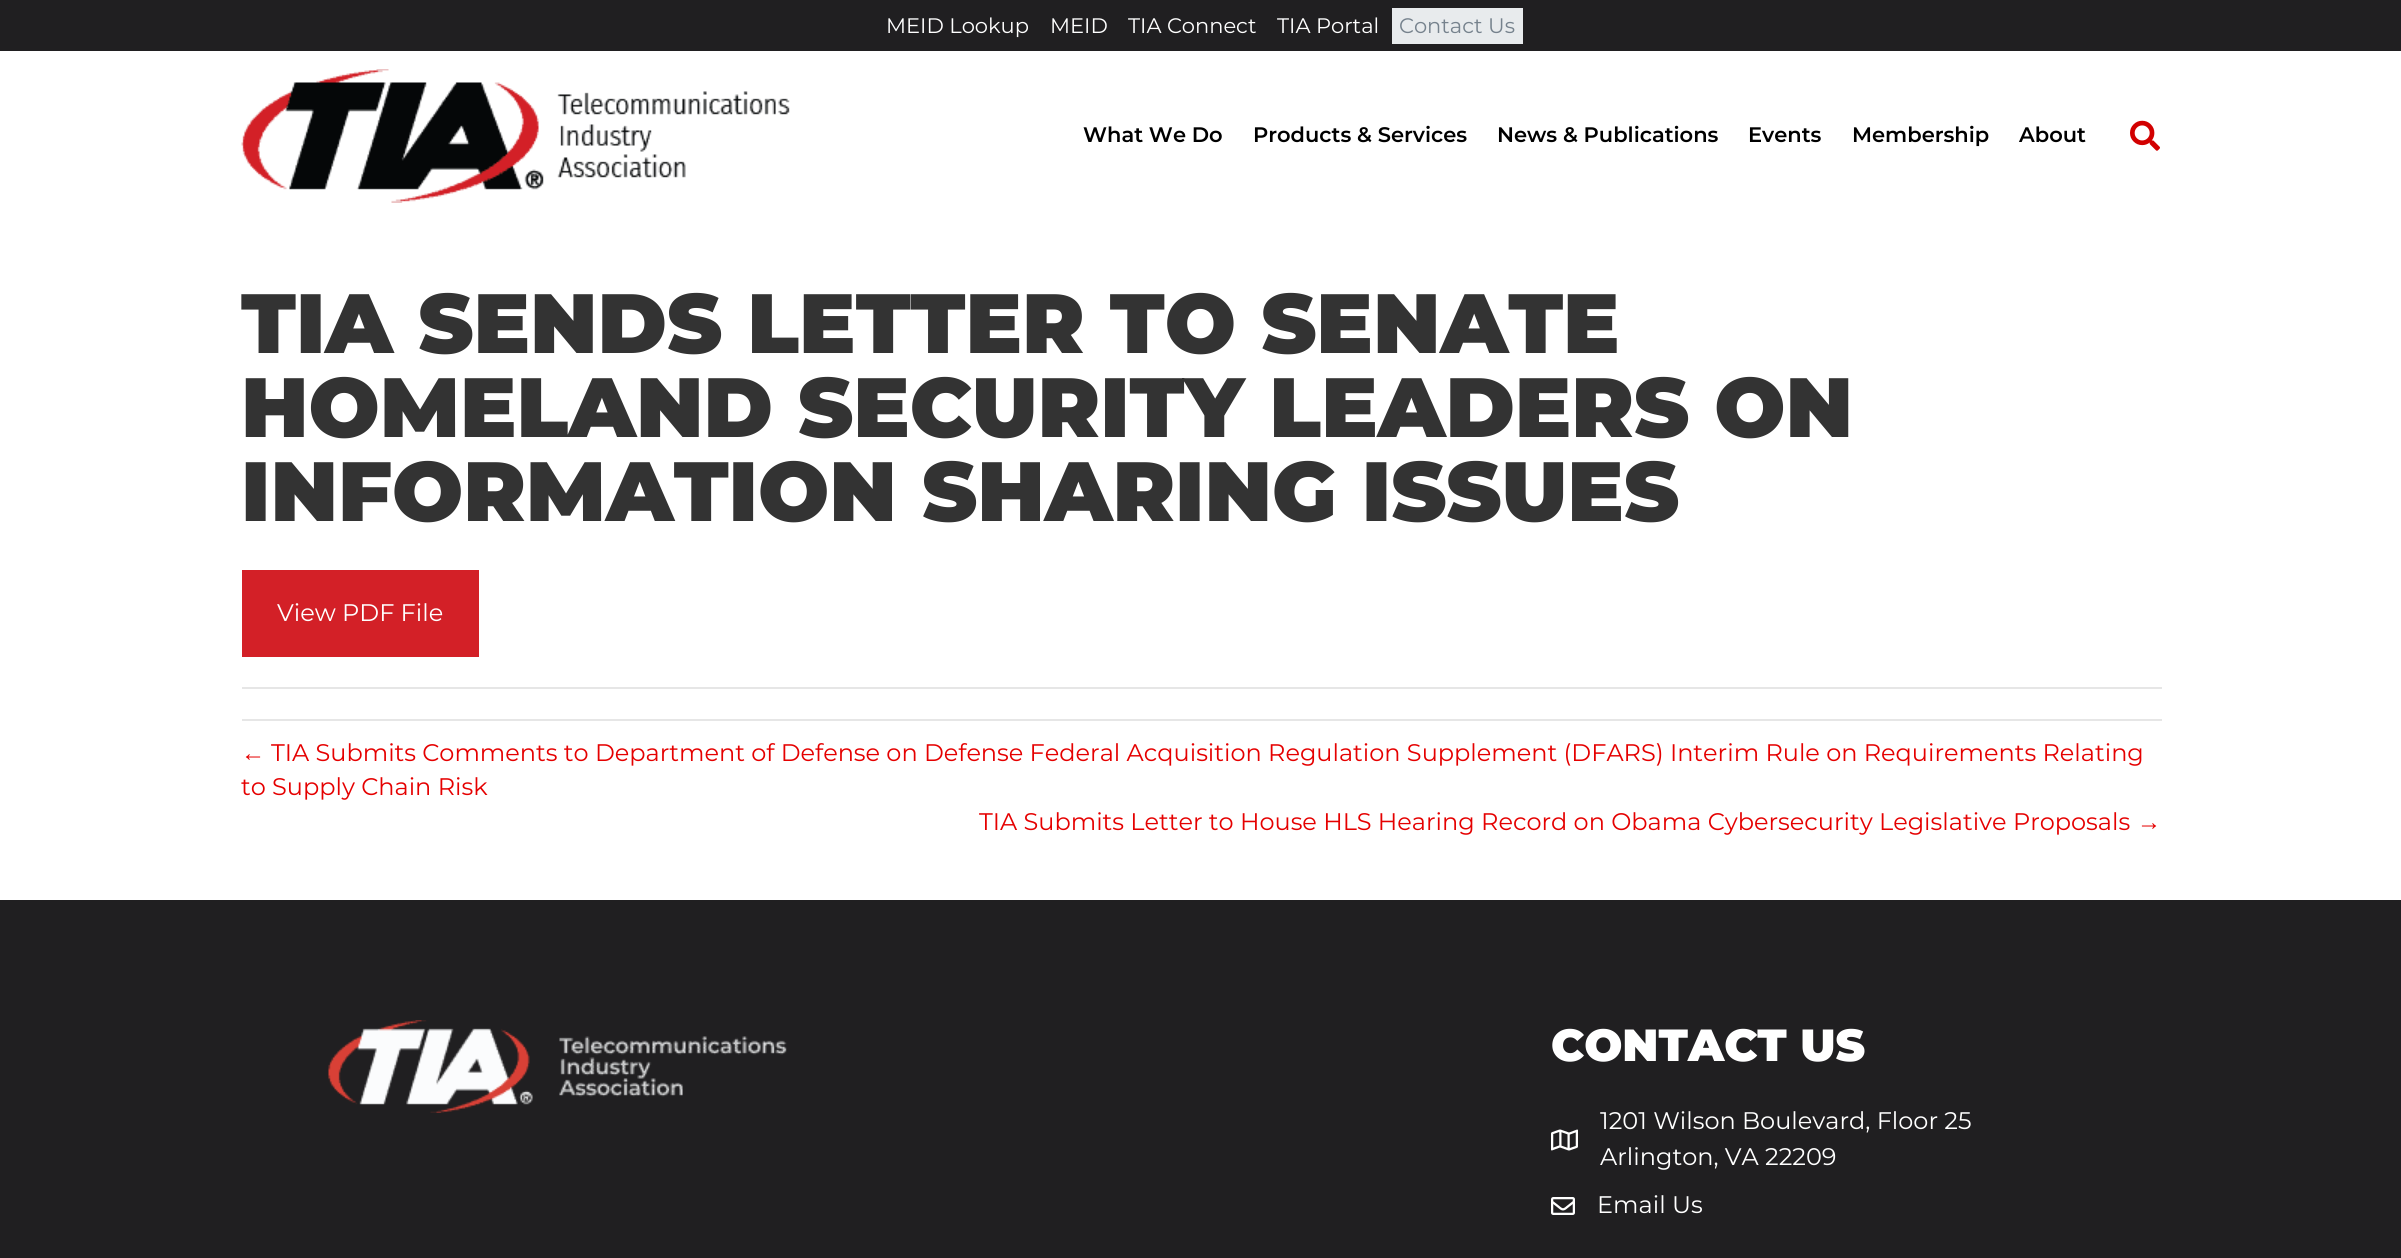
import math
import cairo



def draw_image(context, path, x, y, w, h):
    context.save()
    context.set_source_surface(cairo.ImageSurface.create_from_png(path), x, y)
    context.rectangle(x, y, w, h)
    context.fill()
    context.restore()


def draw(context):
    context.set_source_rgb(1, 1, 1)
    context.paint()
    context.set_source_rgb(32 / 255, 31 / 255, 33 / 255)
    context.rectangle(0, 0, 2401, 51)
    context.fill()
    context.set_source_rgb(232 / 255, 235 / 255, 237 / 255)
    context.rectangle(1392, 8, 131, 36)
    context.fill()
    draw_image(context, "images/1.png", 241, 69, 549, 134)
    draw_image(context, "images/2.png", 2130, 120, 30, 31)
    context.set_source_rgb(211 / 255, 32 / 255, 39 / 255)
    context.rectangle(242, 570, 237, 87)
    context.fill()
    context.set_source_rgb(230 / 255, 230 / 255, 230 / 255)
    context.rectangle(242, 687, 1920, 2)
    context.fill()
    context.rectangle(242, 719, 1920, 2)
    context.fill()
    context.set_source_rgb(32 / 255, 31 / 255, 33 / 255)
    context.rectangle(0, 900, 2401, 358)
    context.fill()
    draw_image(context, "images/3.png", 328, 1020, 459, 93)
    draw_image(context, "images/4.png", 1551, 1129, 27, 22)
    draw_image(context, "images/5.png", 1551, 1197, 24, 18)
    context.select_font_face("Montserrat")
    context.set_font_size(21)
    context.set_source_rgb(1, 1, 1)
    context.move_to(886, 33)
    context.show_text("MEID Lookup")
    context.move_to(1050, 33)
    context.show_text("MEID")
    context.move_to(1128, 33)
    context.show_text("TIA Connect")
    context.move_to(1277, 33)
    context.show_text("TIA Portal")
    context.set_source_rgb(118 / 255, 130 / 255, 141 / 255)
    context.move_to(1399, 33)
    context.show_text("Contact Us")
    context.select_font_face("Montserrat SemiBold")
    context.set_source_rgb(0, 0, 0)
    context.move_to(1083, 142)
    context.show_text("What We Do")
    context.move_to(1253, 142)
    context.show_text("Products & Services")
    context.move_to(1497, 142)
    context.show_text("News & Publications")
    context.move_to(1748, 142)
    context.show_text("Events")
    context.move_to(1852, 142)
    context.show_text("Membership")
    context.move_to(2019, 142)
    context.show_text("About")
    context.select_font_face("Montserrat Black")
    context.set_font_size(84)
    context.set_source_rgb(51 / 255, 51 / 255, 51 / 255)
    context.move_to(241, 353)
    context.show_text("TIA SENDS LETTER TO SENATE")
    context.move_to(241, 437)
    context.show_text("HOMELAND SECURITY LEADERS ON")
    context.move_to(241, 521)
    context.show_text("INFORMATION SHARING ISSUES")
    context.select_font_face("Montserrat")
    context.set_font_size(24)
    context.set_source_rgb(1, 1, 1)
    context.move_to(277, 621)
    context.show_text("View PDF File")
    context.select_font_face("Liberation Sans")
    context.set_source_rgb(229 / 255, 0, 0)
    context.move_to(241, 761)
    context.show_text("←")
    context.select_font_face("Montserrat")
    context.move_to(271, 761)
    context.show_text("TIA Submits Comments to Department of Defense on Defense Federal Acquisition Regulation Supplement (DFARS) Interim Rule on Requirements Relating")
    context.move_to(241, 795)
    context.show_text("to Supply Chain Risk")
    context.move_to(979, 830)
    context.show_text("TIA Submits Letter to House HLS Hearing Record on Obama Cybersecurity Legislative Proposals")
    context.select_font_face("Liberation Sans")
    context.move_to(2137, 830)
    context.show_text("→")
    context.select_font_face("Montserrat Black")
    context.set_font_size(45)
    context.set_source_rgb(1, 1, 1)
    context.move_to(1551, 1061)
    context.show_text("CONTACT US")
    context.select_font_face("Montserrat")
    context.set_font_size(24)
    context.move_to(1600, 1129)
    context.show_text("1201 Wilson Boulevard, Floor 25")
    context.move_to(1600, 1165)
    context.show_text("Arlington, VA 22209")
    context.move_to(1597, 1213)
    context.show_text("Email Us")


surface = cairo.ImageSurface(cairo.Format.RGB24, 2401, 1258)
context = cairo.Context(surface)
options = cairo.FontOptions()
options.set_hint_metrics(cairo.HintMetrics.OFF)
options.set_hint_style(cairo.HintStyle.NONE)
context.set_font_options(options)
context.set_miter_limit(4)
draw(context)
surface.write_to_png("out.png")
